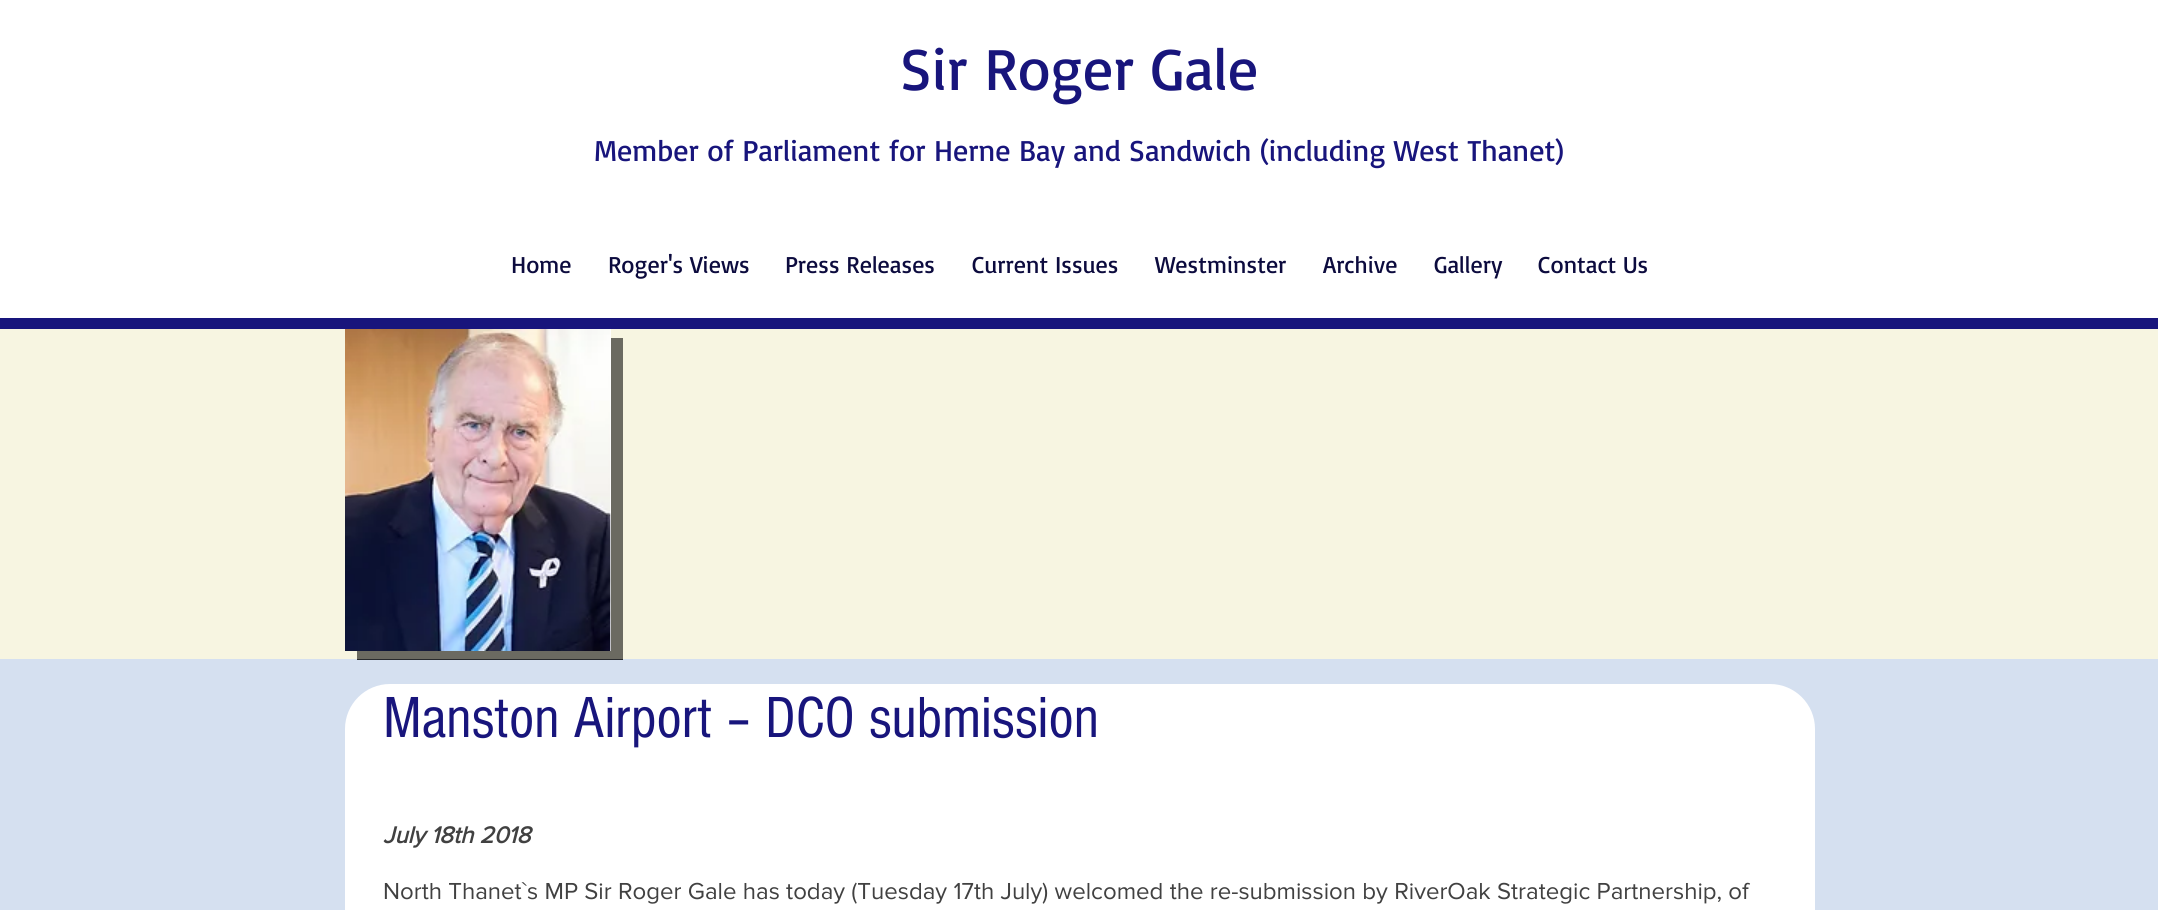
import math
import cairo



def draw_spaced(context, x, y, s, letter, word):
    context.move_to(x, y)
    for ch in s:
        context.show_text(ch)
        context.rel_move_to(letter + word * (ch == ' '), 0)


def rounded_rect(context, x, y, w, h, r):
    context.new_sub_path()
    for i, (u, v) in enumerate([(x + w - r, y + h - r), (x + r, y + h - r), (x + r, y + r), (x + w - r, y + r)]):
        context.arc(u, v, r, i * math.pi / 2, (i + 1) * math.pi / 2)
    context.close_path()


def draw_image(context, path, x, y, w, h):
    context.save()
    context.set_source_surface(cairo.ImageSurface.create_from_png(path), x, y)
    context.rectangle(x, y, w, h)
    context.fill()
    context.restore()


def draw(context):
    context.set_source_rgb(213 / 255, 224 / 255, 240 / 255)
    context.paint()
    context.set_source_rgb(1, 1, 1)
    context.rectangle(0, 0, 2158, 318)
    context.fill()
    context.set_source_rgb(24 / 255, 21 / 255, 124 / 255)
    context.rectangle(0, 318, 2158, 11)
    context.fill()
    context.set_source_rgba(0, 0, 0, 0.57)
    context.new_path()
    context.move_to(357, 651)
    context.line_to(357, 660)
    context.line_to(623, 660)
    context.line_to(623, 338)
    context.line_to(610, 338)
    context.line_to(610, 651)
    context.close_path()
    context.fill()
    context.set_source_rgb(247 / 255, 245 / 255, 225 / 255)
    context.rectangle(0, 329, 2158, 330)
    context.fill()
    context.set_source_rgba(0, 0, 0, 0.57)
    context.new_path()
    context.move_to(357, 651)
    context.line_to(357, 660)
    context.line_to(623, 660)
    context.line_to(623, 338)
    context.line_to(610, 338)
    context.line_to(610, 651)
    context.close_path()
    context.fill()
    context.set_source_rgb(1, 1, 1)
    context.rectangle(610, 329, 1, 322)
    context.fill()
    draw_image(context, "images/1.png", 345, 329, 266, 322)
    rounded_rect(context, 345, 684, 1470, 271, 45)
    context.fill()
    context.select_font_face("Basic")
    context.set_font_size(60)
    context.set_source_rgb(24 / 255, 21 / 255, 124 / 255)
    context.move_to(900, 90)
    context.show_text("Sir Roger Gale")
    context.set_font_size(30)
    context.move_to(594, 161)
    context.show_text("Member of Parliament for Herne Bay and Sandwich (including West Thanet)")
    context.set_font_size(24)
    context.set_source_rgb(12 / 255, 11 / 255, 62 / 255)
    context.move_to(511, 273)
    context.show_text("Home")
    context.move_to(608, 273)
    context.show_text("Roger's Views")
    context.move_to(785, 273)
    context.show_text("Press Releases")
    context.move_to(972, 273)
    context.show_text("Current Issues")
    context.move_to(1155, 273)
    context.show_text("Westminster")
    context.move_to(1323, 273)
    context.show_text("Archive")
    context.move_to(1434, 273)
    context.show_text("Gallery")
    context.move_to(1538, 273)
    context.show_text("Contact Us")
    context.select_font_face("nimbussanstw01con")
    context.set_font_size(60)
    context.set_source_rgb(24 / 255, 21 / 255, 124 / 255)
    context.move_to(383, 737)
    context.show_text("Manston Airport – DCO submission")
    context.select_font_face("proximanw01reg", cairo.FontSlant.ITALIC, cairo.FontWeight.BOLD)
    context.set_font_size(24)
    context.set_source_rgb(65 / 255, 65 / 255, 65 / 255)
    context.move_to(383, 843)
    context.show_text("July 18th 2018")
    context.select_font_face("proximanw01reg")
    draw_spaced(context, 383, 899, "North Thanet`s MP Sir Roger Gale has today (Tuesday 17th July) welcomed the re-submission by RiverOak Strategic Partnership, of", 0, 0.1)


surface = cairo.ImageSurface(cairo.Format.RGB24, 2158, 910)
context = cairo.Context(surface)
options = cairo.FontOptions()
options.set_hint_metrics(cairo.HintMetrics.OFF)
options.set_hint_style(cairo.HintStyle.NONE)
context.set_font_options(options)
context.set_miter_limit(4)
draw(context)
surface.write_to_png("out.png")
